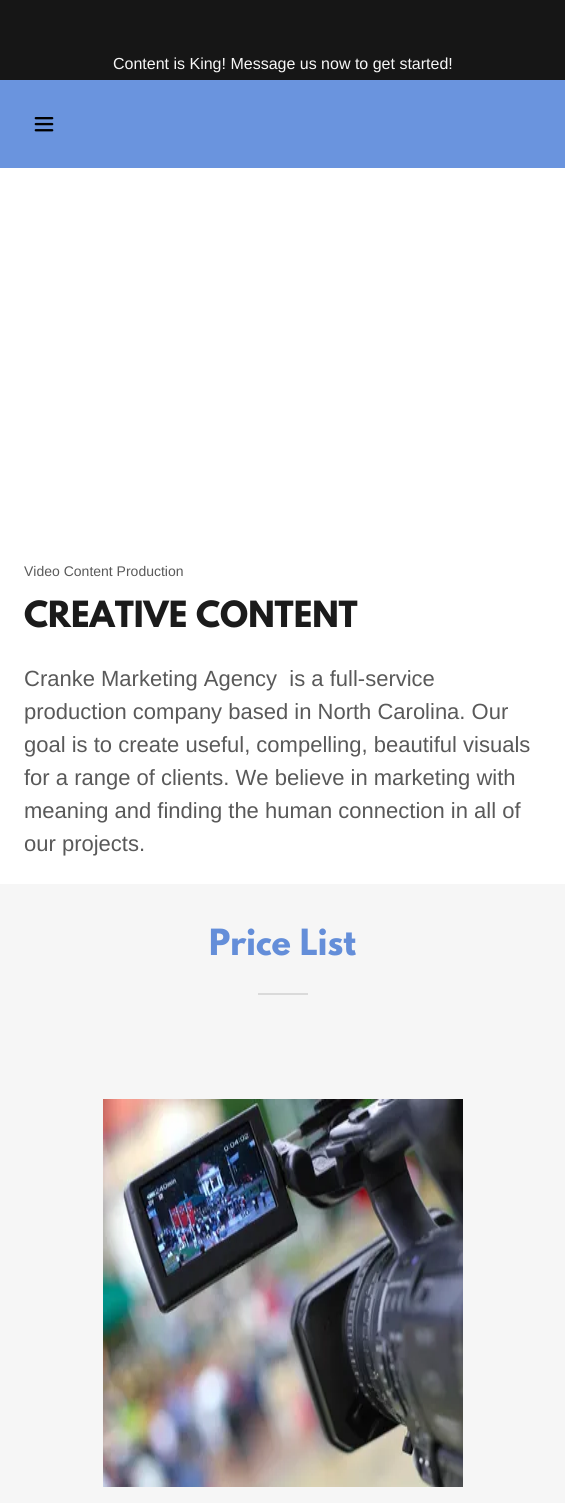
import math
import cairo



def draw_image(context, path, x, y, w, h):
    context.save()
    context.set_source_surface(cairo.ImageSurface.create_from_png(path), x, y)
    context.rectangle(x, y, w, h)
    context.fill()
    context.restore()


def draw(context):
    context.set_source_rgb(106 / 255, 148 / 255, 222 / 255)
    context.paint()
    context.set_source_rgb(22 / 255, 22 / 255, 22 / 255)
    context.rectangle(0, 0, 565, 80)
    context.fill()
    draw_image(context, "images/1.png", 34, 117, 20, 15)
    context.set_source_rgb(1, 1, 1)
    context.rectangle(0, 168, 565, 716)
    context.fill()
    context.set_source_rgb(246 / 255, 246 / 255, 246 / 255)
    context.rectangle(0, 884, 565, 619)
    context.fill()
    context.set_source_rgb(218 / 255, 218 / 255, 218 / 255)
    context.rectangle(258, 993, 50, 2)
    context.fill()
    draw_image(context, "images/2.png", 103, 1099, 360, 388)
    context.select_font_face("Liberation Sans")
    context.set_font_size(16)
    context.set_source_rgb(247 / 255, 247 / 255, 247 / 255)
    context.move_to(113, 69)
    context.show_text("Content is King! Message us now to get started!")
    context.set_font_size(14)
    context.set_source_rgb(89 / 255, 89 / 255, 89 / 255)
    context.move_to(24, 576)
    context.show_text("Video Content Production")
    context.select_font_face("League Spartan", cairo.FontSlant.NORMAL, cairo.FontWeight.BOLD)
    context.set_font_size(32)
    context.set_source_rgb(27 / 255, 27 / 255, 27 / 255)
    context.move_to(24, 627)
    context.show_text("CREATIVE CONTENT")
    context.select_font_face("Liberation Sans")
    context.set_font_size(22)
    context.set_source_rgb(89 / 255, 89 / 255, 89 / 255)
    context.move_to(24, 686)
    context.show_text("Cranke Marketing Agency  is a full-service")
    context.move_to(24, 719)
    context.show_text("production company based in North Carolina. Our")
    context.move_to(24, 752)
    context.show_text("goal is to create useful, compelling, beautiful visuals")
    context.move_to(24, 785)
    context.show_text("for a range of clients. We believe in marketing with")
    context.move_to(24, 818)
    context.show_text("meaning and finding the human connection in all of")
    context.move_to(24, 851)
    context.show_text("our projects.")
    context.select_font_face("League Spartan", cairo.FontSlant.NORMAL, cairo.FontWeight.BOLD)
    context.set_font_size(32)
    context.set_source_rgb(100 / 255, 142 / 255, 217 / 255)
    context.move_to(209, 955)
    context.show_text("Price List")


surface = cairo.ImageSurface(cairo.Format.RGB24, 565, 1503)
context = cairo.Context(surface)
options = cairo.FontOptions()
options.set_hint_metrics(cairo.HintMetrics.OFF)
options.set_hint_style(cairo.HintStyle.NONE)
context.set_font_options(options)
context.set_miter_limit(4)
draw(context)
surface.write_to_png("out.png")
